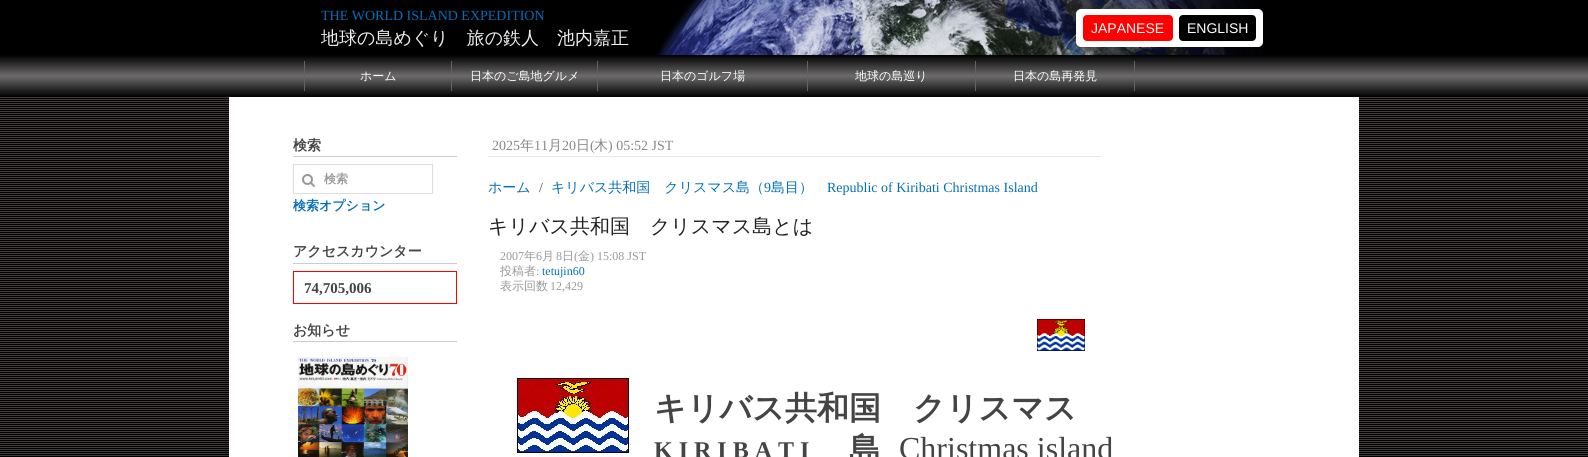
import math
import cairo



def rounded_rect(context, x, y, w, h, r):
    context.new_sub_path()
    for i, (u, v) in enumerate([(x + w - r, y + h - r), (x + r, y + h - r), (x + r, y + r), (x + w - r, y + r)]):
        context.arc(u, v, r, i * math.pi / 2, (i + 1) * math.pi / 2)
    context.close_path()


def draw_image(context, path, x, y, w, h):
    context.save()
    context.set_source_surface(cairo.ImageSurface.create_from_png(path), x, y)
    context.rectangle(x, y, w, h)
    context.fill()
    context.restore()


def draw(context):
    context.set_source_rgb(1, 1, 1)
    context.paint()
    draw_image(context, "images/1.png", 0, 97, 1588, 360)
    context.set_source_rgb(0, 0, 0)
    context.rectangle(0, 0, 1588, 55)
    context.fill()
    draw_image(context, "images/2.png", 656, 0, 607, 55)
    context.set_source_rgb(1, 1, 1)
    rounded_rect(context, 1076, 9, 187, 38, 5)
    context.fill()
    context.set_source_rgb(1, 0, 0)
    rounded_rect(context, 1083, 15, 90, 26, 4)
    context.fill()
    context.set_source_rgb(0, 0, 0)
    rounded_rect(context, 1179, 15, 77, 26, 4)
    context.fill()
    gradient = cairo.LinearGradient(794, 55, 794, 97)
    gradient.add_color_stop_rgba(0, 0, 0, 0, 1)
    gradient.add_color_stop_rgba(0.5, 109 / 255, 107 / 255, 107 / 255, 1)
    gradient.add_color_stop_rgba(1, 0, 0, 0, 1)
    context.set_source(gradient)
    context.rectangle(0, 55, 1588, 42)
    context.fill()
    context.set_source_rgb(99 / 255, 99 / 255, 99 / 255)
    context.rectangle(304, 61, 1, 30)
    context.fill()
    context.rectangle(597, 61, 1, 30)
    context.fill()
    context.rectangle(451, 61, 1, 30)
    context.fill()
    context.rectangle(807, 61, 1, 30)
    context.fill()
    context.rectangle(1134, 61, 1, 30)
    context.fill()
    context.rectangle(975, 61, 1, 30)
    context.fill()
    context.set_source_rgb(1, 1, 1)
    context.rectangle(229, 97, 1130, 360)
    context.fill()
    context.set_source_rgb(204 / 255, 204 / 255, 204 / 255)
    context.rectangle(293, 156, 164, 1)
    context.fill()
    context.rectangle(293.5, 164.5, 139, 29)
    context.set_source_rgb(221 / 255, 221 / 255, 221 / 255)
    context.set_line_width(1)
    context.stroke()
    draw_image(context, "images/3.png", 302, 174, 13, 13)
    context.set_source_rgb(204 / 255, 204 / 255, 204 / 255)
    context.rectangle(293, 263, 164, 1)
    context.fill()
    context.rectangle(293.5, 271.5, 163, 32)
    context.set_source_rgb(1, 0, 0)
    context.stroke()
    context.set_source_rgb(204 / 255, 204 / 255, 204 / 255)
    context.rectangle(293, 341, 164, 1)
    context.fill()
    draw_image(context, "images/4.png", 298, 357, 110, 100)
    context.set_source_rgb(231 / 255, 231 / 255, 231 / 255)
    context.rectangle(488, 156, 612, 1)
    context.fill()
    draw_image(context, "images/5.png", 1037, 319, 48, 32)
    draw_image(context, "images/6.png", 517, 378, 112, 75)
    context.select_font_face("Liberation Serif")
    context.set_font_size(14)
    context.set_source_rgb(3 / 255, 110 / 255, 184 / 255)
    context.move_to(321, 20)
    context.show_text("THE WORLD ISLAND EXPEDITION")
    context.select_font_face("WenQuanYi Zen Hei Medium")
    context.set_font_size(18)
    context.set_source_rgb(238 / 255, 238 / 255, 238 / 255)
    context.move_to(321, 44)
    context.show_text("地球の島めぐり　旅の鉄人　池内嘉正")
    context.select_font_face("Liberation Sans")
    context.set_font_size(14)
    context.set_source_rgb(1, 1, 1)
    context.move_to(1091, 33)
    context.show_text("JAPANESE")
    context.move_to(1187, 33)
    context.show_text("ENGLISH")
    context.select_font_face("WenQuanYi Zen Hei Medium")
    context.set_font_size(12)
    context.move_to(360, 80)
    context.show_text("ホーム")
    context.move_to(470, 80)
    context.show_text("日本のご島地グルメ")
    context.move_to(660, 80)
    context.show_text("日本のゴルフ場")
    context.move_to(855, 80)
    context.show_text("地球の島巡り")
    context.move_to(1013, 80)
    context.show_text("日本の島再発見")
    context.select_font_face("WenQuanYi Zen Hei", cairo.FontSlant.NORMAL, cairo.FontWeight.BOLD)
    context.set_font_size(14)
    context.set_source_rgb(68 / 255, 68 / 255, 68 / 255)
    context.move_to(293, 150)
    context.show_text("検索")
    context.set_font_size(12)
    context.set_source_rgb(153 / 255, 153 / 255, 153 / 255)
    context.move_to(324, 183)
    context.show_text("検索")
    context.set_font_size(13)
    context.set_source_rgb(3 / 255, 110 / 255, 184 / 255)
    context.move_to(293, 210)
    context.show_text("検索オプション")
    context.set_font_size(14)
    context.set_source_rgb(68 / 255, 68 / 255, 68 / 255)
    context.move_to(293, 256)
    context.show_text("アクセスカウンター")
    context.select_font_face("Liberation Serif", cairo.FontSlant.NORMAL, cairo.FontWeight.BOLD)
    context.set_font_size(15)
    context.move_to(304, 293)
    context.show_text("74,705,006")
    context.select_font_face("WenQuanYi Zen Hei", cairo.FontSlant.NORMAL, cairo.FontWeight.BOLD)
    context.set_font_size(14)
    context.move_to(293, 335)
    context.show_text("お知らせ")
    context.select_font_face("Liberation Serif")
    context.set_source_rgb(136 / 255, 136 / 255, 136 / 255)
    context.move_to(492, 150)
    context.show_text("2025")
    context.select_font_face("WenQuanYi Zen Hei Medium")
    context.move_to(520, 150)
    context.show_text("年")
    context.select_font_face("Liberation Serif")
    context.move_to(534, 150)
    context.show_text("11")
    context.select_font_face("WenQuanYi Zen Hei Medium")
    context.move_to(548, 150)
    context.show_text("月")
    context.select_font_face("Liberation Serif")
    context.move_to(562, 150)
    context.show_text("20")
    context.select_font_face("WenQuanYi Zen Hei Medium")
    context.move_to(576, 150)
    context.show_text("日")
    context.select_font_face("Liberation Serif")
    context.move_to(590, 150)
    context.show_text("(")
    context.select_font_face("WenQuanYi Zen Hei Medium")
    context.move_to(594, 150)
    context.show_text("木")
    context.select_font_face("Liberation Serif")
    context.move_to(608, 150)
    context.show_text(") 05:52 JST")
    context.select_font_face("WenQuanYi Zen Hei Medium")
    context.set_source_rgb(3 / 255, 110 / 255, 184 / 255)
    context.move_to(488, 192)
    context.show_text("ホーム")
    context.select_font_face("Liberation Serif")
    context.set_source_rgb(68 / 255, 68 / 255, 68 / 255)
    context.move_to(539, 192)
    context.show_text("/")
    context.select_font_face("WenQuanYi Zen Hei Medium")
    context.set_source_rgb(3 / 255, 110 / 255, 184 / 255)
    context.move_to(551, 192)
    context.show_text("キリバス共和国　クリスマス島（")
    context.select_font_face("Liberation Serif")
    context.move_to(764, 192)
    context.show_text("9")
    context.select_font_face("WenQuanYi Zen Hei Medium")
    context.move_to(771, 192)
    context.show_text("島目）")
    context.select_font_face("Liberation Serif")
    context.move_to(827, 192)
    context.show_text("Republic of Kiribati Christmas Island")
    context.select_font_face("WenQuanYi Zen Hei Medium")
    context.set_font_size(20)
    context.set_source_rgb(34 / 255, 34 / 255, 34 / 255)
    context.move_to(488, 233)
    context.show_text("キリバス共和国　クリスマス島とは")
    context.select_font_face("Liberation Serif")
    context.set_font_size(12)
    context.set_source_rgb(153 / 255, 153 / 255, 153 / 255)
    context.move_to(500, 260)
    context.show_text("2007")
    context.select_font_face("WenQuanYi Zen Hei Medium")
    context.move_to(524, 260)
    context.show_text("年")
    context.select_font_face("Liberation Serif")
    context.move_to(536, 260)
    context.show_text("6")
    context.select_font_face("WenQuanYi Zen Hei Medium")
    context.move_to(542, 260)
    context.show_text("月")
    context.select_font_face("Liberation Serif")
    context.move_to(556, 260)
    context.show_text("8")
    context.select_font_face("WenQuanYi Zen Hei Medium")
    context.move_to(562, 260)
    context.show_text("日")
    context.select_font_face("Liberation Serif")
    context.move_to(574, 260)
    context.show_text("(")
    context.select_font_face("WenQuanYi Zen Hei Medium")
    context.move_to(578, 260)
    context.show_text("金")
    context.select_font_face("Liberation Serif")
    context.move_to(590, 260)
    context.show_text(") 15:08 JST")
    context.select_font_face("WenQuanYi Zen Hei Medium")
    context.move_to(500, 275)
    context.show_text("投稿者")
    context.select_font_face("Liberation Serif")
    context.move_to(536, 275)
    context.show_text(":")
    context.set_source_rgb(3 / 255, 110 / 255, 184 / 255)
    context.move_to(542, 275)
    context.show_text("tetujin60")
    context.select_font_face("WenQuanYi Zen Hei Medium")
    context.set_source_rgb(153 / 255, 153 / 255, 153 / 255)
    context.move_to(500, 290)
    context.show_text("表示回数")
    context.select_font_face("Liberation Serif")
    context.move_to(550, 290)
    context.show_text("12,429")
    context.select_font_face("WenQuanYi Zen Hei", cairo.FontSlant.NORMAL, cairo.FontWeight.BOLD)
    context.set_font_size(32)
    context.set_source_rgb(68 / 255, 68 / 255, 68 / 255)
    context.move_to(654, 419)
    context.show_text("キリバス共和国　クリスマス")
    context.move_to(849, 460)
    context.show_text("島")
    context.select_font_face("Liberation Serif", cairo.FontSlant.NORMAL, cairo.FontWeight.BOLD)
    context.set_font_size(24)
    context.move_to(654, 458)
    context.show_text("K I R I B A T I")
    context.select_font_face("Liberation Serif")
    context.set_font_size(32)
    context.move_to(899, 459)
    context.show_text("Christmas island")


surface = cairo.ImageSurface(cairo.Format.RGB24, 1588, 457)
context = cairo.Context(surface)
options = cairo.FontOptions()
options.set_hint_metrics(cairo.HintMetrics.OFF)
options.set_hint_style(cairo.HintStyle.NONE)
context.set_font_options(options)
context.set_miter_limit(4)
draw(context)
surface.write_to_png("out.png")
